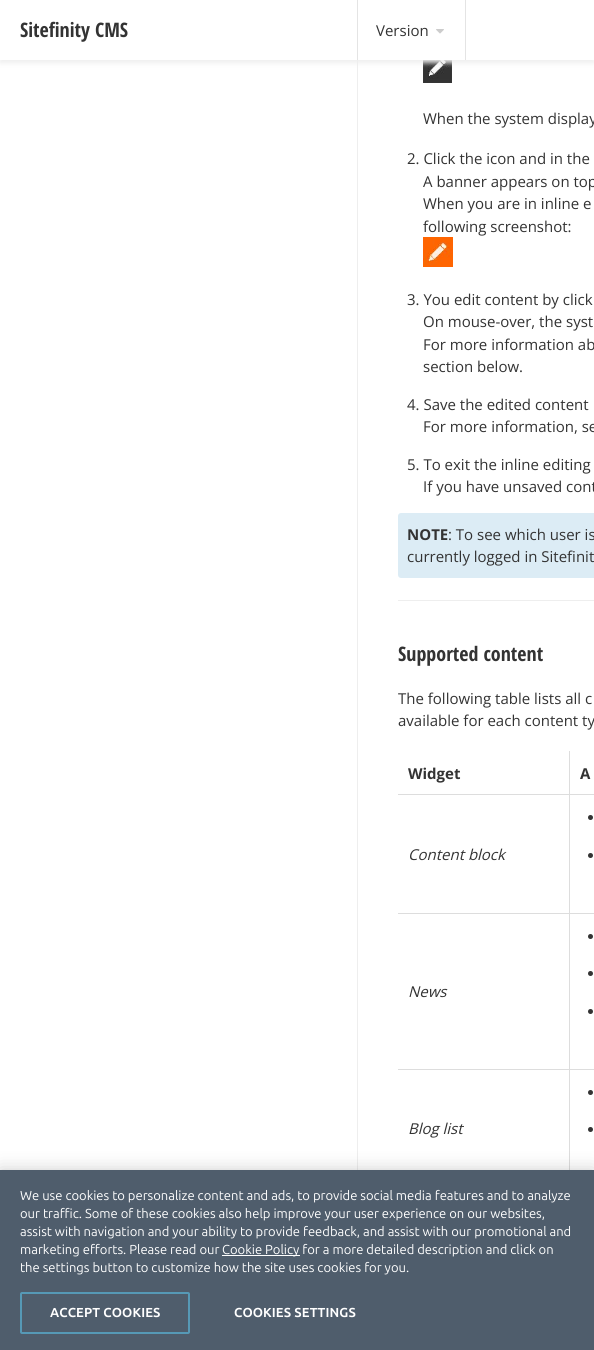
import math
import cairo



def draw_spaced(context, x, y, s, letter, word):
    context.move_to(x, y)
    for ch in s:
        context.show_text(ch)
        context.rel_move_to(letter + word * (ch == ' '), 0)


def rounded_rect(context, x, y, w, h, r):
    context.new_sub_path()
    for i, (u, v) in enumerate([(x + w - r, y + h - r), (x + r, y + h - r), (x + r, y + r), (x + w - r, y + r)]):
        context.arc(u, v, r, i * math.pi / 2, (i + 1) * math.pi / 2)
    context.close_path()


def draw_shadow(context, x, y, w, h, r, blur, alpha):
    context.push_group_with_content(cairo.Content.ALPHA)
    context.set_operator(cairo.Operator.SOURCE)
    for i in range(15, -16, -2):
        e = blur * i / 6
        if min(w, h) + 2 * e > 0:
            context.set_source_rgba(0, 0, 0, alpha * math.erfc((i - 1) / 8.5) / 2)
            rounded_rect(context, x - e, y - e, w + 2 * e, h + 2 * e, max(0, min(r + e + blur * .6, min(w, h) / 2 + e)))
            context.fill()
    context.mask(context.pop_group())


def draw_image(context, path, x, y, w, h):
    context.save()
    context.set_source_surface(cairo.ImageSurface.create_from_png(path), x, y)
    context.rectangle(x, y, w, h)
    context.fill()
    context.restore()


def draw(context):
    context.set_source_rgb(1, 1, 1)
    context.paint()
    context.set_source_rgb(238 / 255, 238 / 255, 238 / 255)
    context.rectangle(357, 60, 1, 1110)
    context.fill()
    draw_image(context, "images/2.png", 423, 60, 29, 23)
    context.set_source_rgb(238 / 255, 238 / 255, 238 / 255)
    draw_shadow(context, 0, 3, 594, 60, 0, 2.5, 1)
    context.set_source_rgb(1, 1, 1)
    context.rectangle(0, 0, 594, 60)
    context.fill()
    context.set_source_rgb(228 / 255, 228 / 255, 228 / 255)
    context.rectangle(465, 0, 1, 60)
    context.fill()
    context.rectangle(357, 0, 1, 60)
    context.fill()
    draw_image(context, "images/1.png", 436, 29, 8, 5)
    draw_image(context, "images/3.png", 423, 237, 30, 30)
    context.set_source_rgb(220 / 255, 236 / 255, 245 / 255)
    rounded_rect(context, 398, 513, 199, 65, 3)
    context.fill()
    context.set_source_rgb(238 / 255, 238 / 255, 238 / 255)
    context.rectangle(398, 600, 196, 1)
    context.fill()
    context.set_source_rgb(221 / 255, 221 / 255, 221 / 255)
    context.rectangle(569, 794, 25, 1)
    context.fill()
    context.rectangle(569, 913, 25, 1)
    context.fill()
    context.rectangle(569, 1069, 25, 1)
    context.fill()
    context.rectangle(569, 1069, 1, 101)
    context.fill()
    context.rectangle(398, 1069, 172, 1)
    context.fill()
    context.rectangle(569, 913, 1, 157)
    context.fill()
    context.rectangle(398, 913, 172, 1)
    context.fill()
    context.rectangle(569, 794, 1, 120)
    context.fill()
    context.rectangle(398, 794, 172, 1)
    context.fill()
    context.rectangle(569, 751, 1, 44)
    context.fill()
    context.set_source_rgb(51 / 255, 51 / 255, 51 / 255)
    context.arc(590.5, 817.5, 2.5, 0, 2 * math.pi)
    context.fill()
    context.arc(590.5, 855.5, 2.5, 0, 2 * math.pi)
    context.fill()
    context.arc(590.5, 936.5, 2.5, 0, 2 * math.pi)
    context.fill()
    context.arc(590.5, 973.5, 2.5, 0, 2 * math.pi)
    context.fill()
    context.arc(590.5, 1011.5, 2.5, 0, 2 * math.pi)
    context.fill()
    context.arc(590.5, 1092.5, 2.5, 0, 2 * math.pi)
    context.fill()
    context.arc(590.5, 1129.5, 2.5, 0, 2 * math.pi)
    context.fill()
    context.set_source_rgb(0, 0, 0)
    draw_shadow(context, 0, 1170, 594, 180, 0, 9, 0.2)
    context.set_source_rgb(79 / 255, 93 / 255, 108 / 255)
    context.rectangle(0, 1170, 594, 180)
    context.fill()
    context.set_source_rgb(1, 1, 1)
    context.rectangle(222, 1255, 78, 1)
    context.fill()
    rounded_rect(context, 21, 1293, 168, 40, 1)
    context.set_source_rgb(86 / 255, 153 / 255, 182 / 255)
    context.stroke()
    context.select_font_face("Open Sans Condensed", cairo.FontSlant.NORMAL, cairo.FontWeight.BOLD)
    context.set_font_size(20)
    context.set_source_rgb(51 / 255, 51 / 255, 51 / 255)
    context.move_to(20, 37)
    context.show_text("Sitefinity CMS")
    context.select_font_face("Open Sans")
    context.set_font_size(15)
    context.move_to(376, 36)
    context.show_text("Version")
    context.move_to(423, 124)
    context.show_text("When the system display")
    context.move_to(407, 164)
    context.show_text("2. Click the icon and in the")
    context.move_to(423, 187)
    context.show_text("A banner appears on top")
    context.move_to(423, 209)
    context.show_text("When you are in inline e")
    context.move_to(423, 232)
    context.show_text("following screenshot:")
    context.move_to(407, 305)
    context.show_text("3. You edit content by click")
    context.move_to(423, 327)
    context.show_text("On mouse-over, the syst")
    context.move_to(423, 350)
    context.show_text("For more information ab")
    context.move_to(423, 372)
    context.show_text("section below.")
    context.move_to(407, 410)
    context.show_text("4. Save the edited content")
    context.move_to(423, 432)
    context.show_text("For more information, se")
    context.move_to(407, 470)
    context.show_text("5. To exit the inline editing")
    context.move_to(423, 492)
    context.show_text("If you have unsaved cont")
    context.select_font_face("Open Sans", cairo.FontSlant.NORMAL, cairo.FontWeight.BOLD)
    context.move_to(407, 540)
    context.show_text("NOTE")
    context.select_font_face("Open Sans")
    context.move_to(448, 540)
    context.show_text(": To see which user is")
    context.move_to(407, 562)
    context.show_text("currently logged in Sitefinit")
    context.select_font_face("Open Sans Condensed", cairo.FontSlant.NORMAL, cairo.FontWeight.BOLD)
    context.set_font_size(20)
    context.move_to(398, 661)
    context.show_text("Supported content")
    context.select_font_face("Open Sans")
    context.set_font_size(15)
    context.move_to(398, 704)
    context.show_text("The following table lists all c")
    context.move_to(398, 726)
    context.show_text("available for each content ty")
    context.select_font_face("Open Sans", cairo.FontSlant.NORMAL, cairo.FontWeight.BOLD)
    context.move_to(408, 779)
    context.show_text("Widget")
    context.move_to(580, 779)
    context.show_text("A")
    context.select_font_face("Open Sans", cairo.FontSlant.ITALIC)
    context.move_to(408, 860)
    context.show_text("Content block")
    context.move_to(408, 997)
    context.show_text("News")
    context.move_to(408, 1134)
    context.show_text("Blog list")
    context.select_font_face("Ubuntu")
    context.set_font_size(13)
    context.set_source_rgb(1, 1, 1)
    context.move_to(20, 1200)
    context.show_text("We use cookies to personalize content and ads, to provide social media features and to analyze")
    context.move_to(20, 1218)
    context.show_text("our traffic. Some of these cookies also help improve your user experience on our websites,")
    context.move_to(20, 1236)
    context.show_text("assist with navigation and your ability to provide feedback, and assist with our promotional and")
    context.move_to(20, 1254)
    context.show_text("marketing efforts. Please read our")
    context.move_to(222, 1254)
    context.show_text("Cookie Policy for a more detailed description and click on")
    context.move_to(20, 1272)
    context.show_text("the settings button to customize how the site uses cookies for you.")
    context.select_font_face("Ubuntu", cairo.FontSlant.NORMAL, cairo.FontWeight.BOLD)
    draw_spaced(context, 50, 1317, "ACCEPT COOKIES", 0.1, 0)
    draw_spaced(context, 234, 1317, "COOKIES SETTINGS", 0.1, 0)


surface = cairo.ImageSurface(cairo.Format.RGB24, 594, 1350)
context = cairo.Context(surface)
options = cairo.FontOptions()
options.set_hint_metrics(cairo.HintMetrics.OFF)
options.set_hint_style(cairo.HintStyle.NONE)
context.set_font_options(options)
context.set_miter_limit(4)
draw(context)
surface.write_to_png("out.png")
